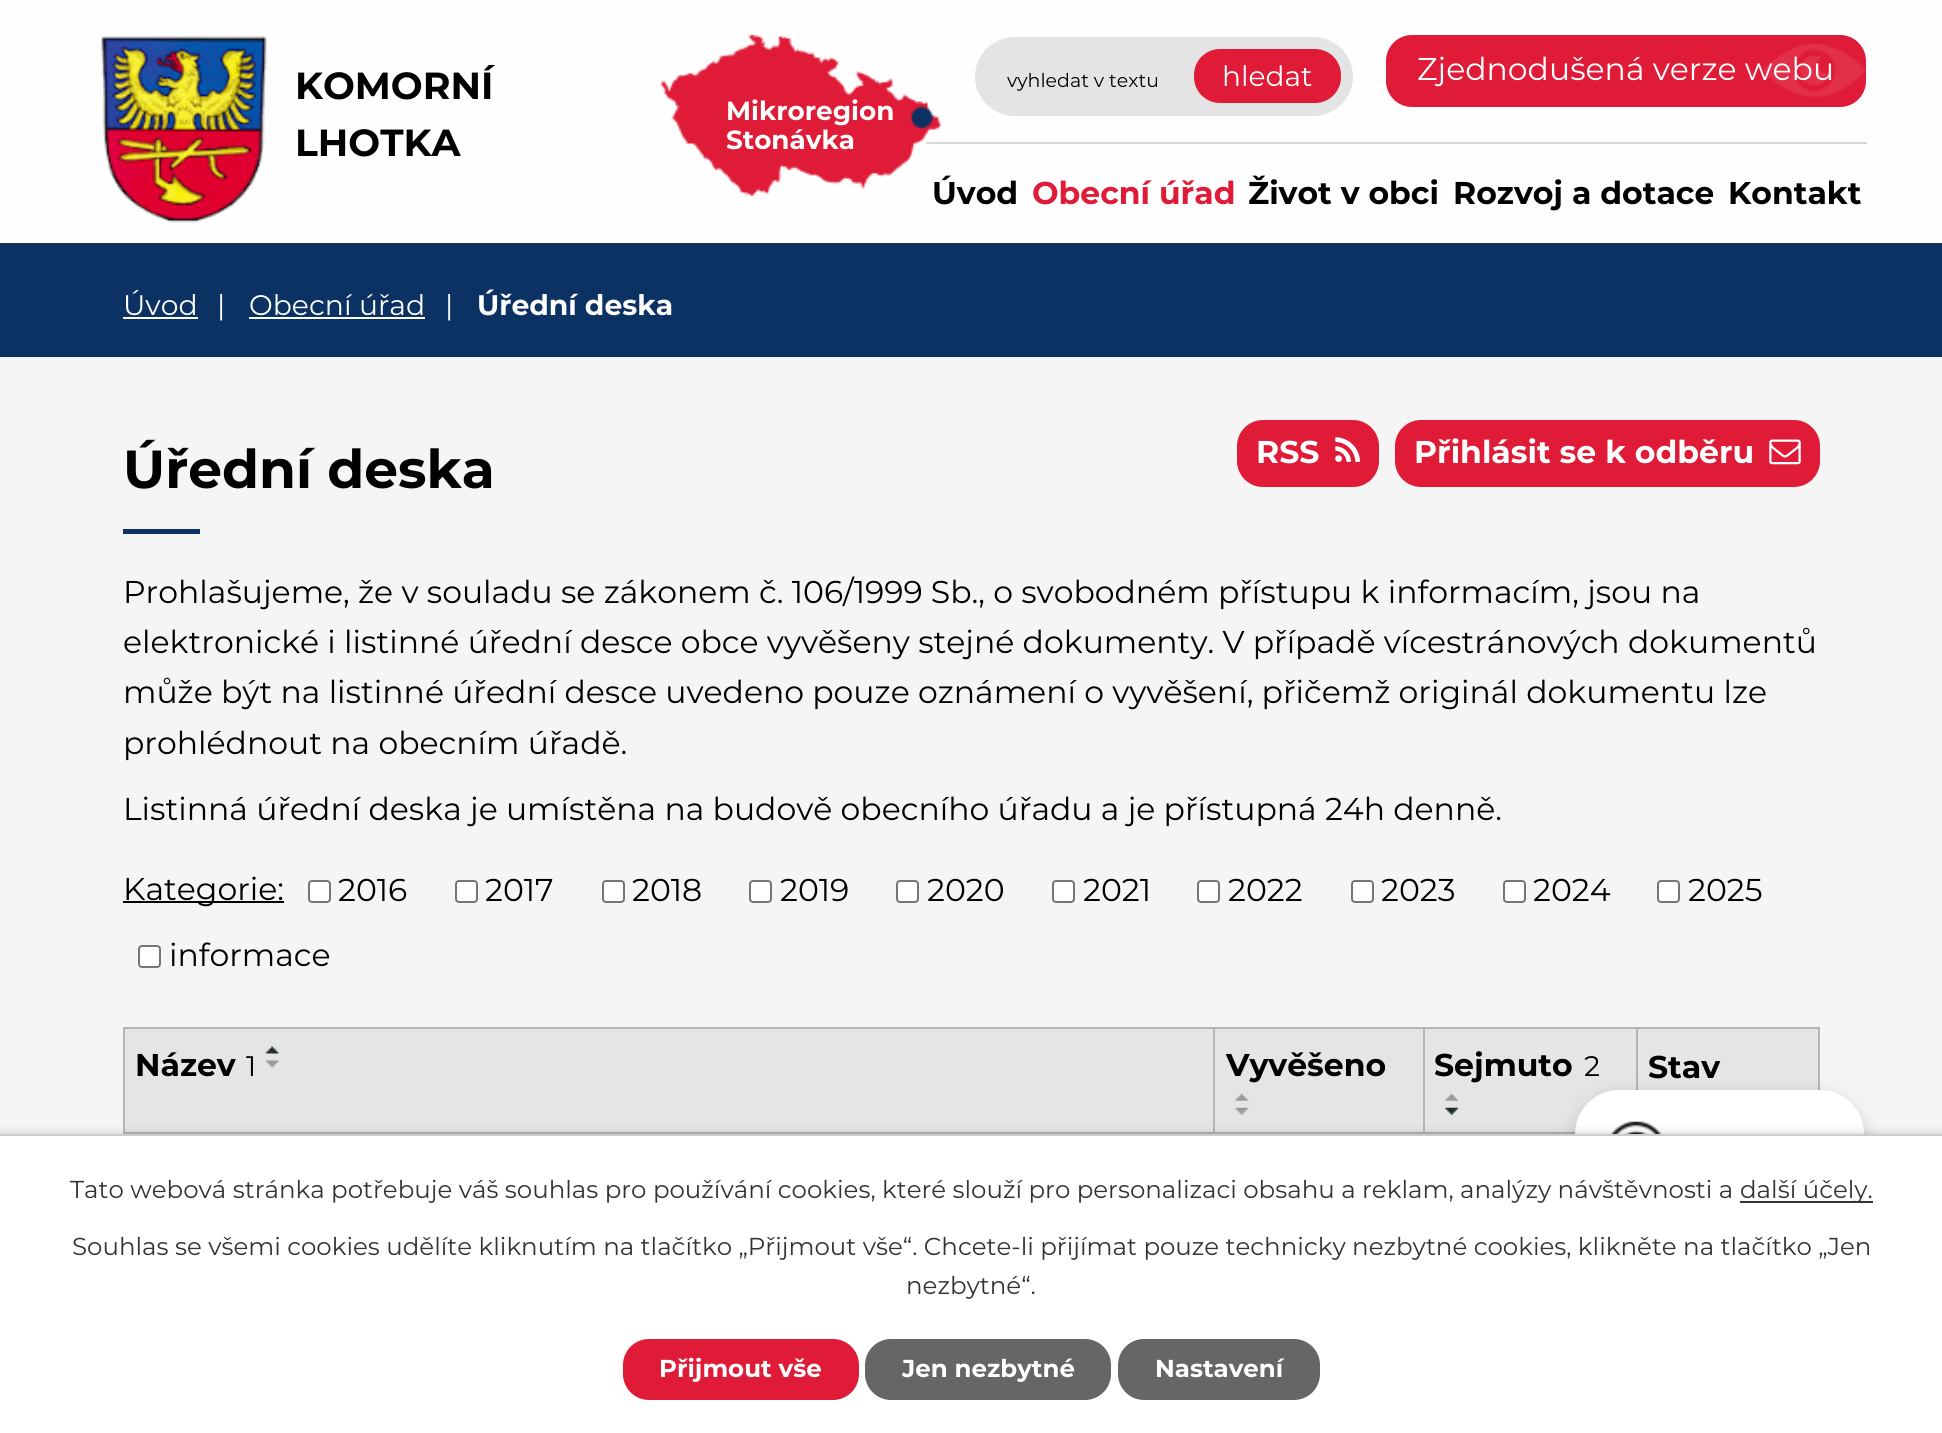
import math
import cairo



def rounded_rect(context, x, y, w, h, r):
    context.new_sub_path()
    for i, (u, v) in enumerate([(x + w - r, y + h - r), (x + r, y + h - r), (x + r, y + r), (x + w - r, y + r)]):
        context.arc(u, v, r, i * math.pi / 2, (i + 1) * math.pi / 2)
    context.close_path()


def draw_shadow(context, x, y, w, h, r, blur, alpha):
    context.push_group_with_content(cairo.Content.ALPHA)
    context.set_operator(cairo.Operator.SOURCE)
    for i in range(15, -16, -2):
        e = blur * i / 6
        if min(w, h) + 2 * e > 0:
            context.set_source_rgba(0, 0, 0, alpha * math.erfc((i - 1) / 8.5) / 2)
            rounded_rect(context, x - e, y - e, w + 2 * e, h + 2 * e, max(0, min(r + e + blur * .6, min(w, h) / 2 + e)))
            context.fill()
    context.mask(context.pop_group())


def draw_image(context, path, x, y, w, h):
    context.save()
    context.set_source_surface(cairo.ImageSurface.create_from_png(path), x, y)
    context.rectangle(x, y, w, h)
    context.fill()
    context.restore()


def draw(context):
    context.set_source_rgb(245 / 255, 245 / 255, 245 / 255)
    context.paint()
    context.set_source_rgb(254 / 255, 254 / 255, 254 / 255)
    context.rectangle(0, 0, 1942, 243)
    context.fill()
    draw_image(context, "images/1.png", 101, 36, 166, 187)
    context.set_source_rgb(228 / 255, 228 / 255, 228 / 255)
    rounded_rect(context, 975, 37, 378, 79, 39.5)
    context.fill()
    context.set_source_rgb(224 / 255, 27 / 255, 55 / 255)
    rounded_rect(context, 1194, 49, 147, 54, 26)
    context.fill()
    rounded_rect(context, 1386, 35, 480, 72, 26)
    context.fill()
    draw_image(context, "images/2.png", 1764, 44, 101, 54)
    context.set_source_rgb(214 / 255, 214 / 255, 214 / 255)
    context.rectangle(926, 142, 941, 2)
    context.fill()
    draw_image(context, "images/3.png", 661, 35, 281, 161)
    context.set_source_rgb(11 / 255, 50 / 255, 99 / 255)
    context.rectangle(0, 243, 1942, 114)
    context.fill()
    context.set_source_rgb(1, 1, 1)
    context.rectangle(123, 317, 75, 2)
    context.fill()
    context.rectangle(249, 317, 176, 2)
    context.fill()
    context.set_source_rgb(11 / 255, 50 / 255, 99 / 255)
    context.rectangle(123, 529, 77, 5)
    context.fill()
    context.set_source_rgb(224 / 255, 27 / 255, 55 / 255)
    rounded_rect(context, 1237, 420, 142, 67, 26)
    context.fill()
    draw_image(context, "images/4.png", 1335, 437, 25, 25)
    rounded_rect(context, 1395, 420, 425, 67, 26)
    context.fill()
    draw_image(context, "images/5.png", 1769, 439, 32, 26)
    context.set_source_rgb(0, 0, 0)
    context.rectangle(123, 901, 161, 2)
    context.fill()
    context.set_source_rgb(1, 1, 1)
    rounded_rect(context, 309, 881, 21, 21, 3)
    context.fill_preserve()
    context.set_source_rgb(118 / 255, 118 / 255, 118 / 255)
    context.stroke()
    context.set_source_rgb(1, 1, 1)
    rounded_rect(context, 456, 881, 21, 21, 3)
    context.fill_preserve()
    context.set_source_rgb(118 / 255, 118 / 255, 118 / 255)
    context.stroke()
    context.set_source_rgb(1, 1, 1)
    rounded_rect(context, 603, 881, 21, 21, 3)
    context.fill_preserve()
    context.set_source_rgb(118 / 255, 118 / 255, 118 / 255)
    context.stroke()
    context.set_source_rgb(1, 1, 1)
    rounded_rect(context, 750, 881, 21, 21, 3)
    context.fill_preserve()
    context.set_source_rgb(118 / 255, 118 / 255, 118 / 255)
    context.stroke()
    context.set_source_rgb(1, 1, 1)
    rounded_rect(context, 897, 881, 21, 21, 3)
    context.fill_preserve()
    context.set_source_rgb(118 / 255, 118 / 255, 118 / 255)
    context.stroke()
    context.set_source_rgb(1, 1, 1)
    rounded_rect(context, 1053, 881, 21, 21, 3)
    context.fill_preserve()
    context.set_source_rgb(118 / 255, 118 / 255, 118 / 255)
    context.stroke()
    context.set_source_rgb(1, 1, 1)
    rounded_rect(context, 1198, 881, 21, 21, 3)
    context.fill_preserve()
    context.set_source_rgb(118 / 255, 118 / 255, 118 / 255)
    context.stroke()
    context.set_source_rgb(1, 1, 1)
    rounded_rect(context, 1352, 881, 21, 21, 3)
    context.fill_preserve()
    context.set_source_rgb(118 / 255, 118 / 255, 118 / 255)
    context.stroke()
    context.set_source_rgb(1, 1, 1)
    rounded_rect(context, 1504, 881, 21, 21, 3)
    context.fill_preserve()
    context.set_source_rgb(118 / 255, 118 / 255, 118 / 255)
    context.stroke()
    context.set_source_rgb(1, 1, 1)
    rounded_rect(context, 1658, 881, 21, 21, 3)
    context.fill_preserve()
    context.set_source_rgb(118 / 255, 118 / 255, 118 / 255)
    context.stroke()
    context.set_source_rgb(1, 1, 1)
    rounded_rect(context, 139, 946, 21, 21, 3)
    context.fill_preserve()
    context.set_source_rgb(118 / 255, 118 / 255, 118 / 255)
    context.stroke()
    context.set_source_rgb(229 / 255, 229 / 255, 229 / 255)
    context.rectangle(125, 1029, 1088, 103)
    context.fill()
    context.set_source_rgb(181 / 255, 181 / 255, 181 / 255)
    context.rectangle(1636, 1027, 184, 2)
    context.fill()
    context.rectangle(1636, 1027, 2, 63)
    context.fill()
    context.rectangle(1423, 1027, 215, 2)
    context.fill()
    context.rectangle(1423, 1132, 153, 2)
    context.fill()
    context.rectangle(1423, 1027, 2, 107)
    context.fill()
    context.rectangle(1213, 1027, 212, 2)
    context.fill()
    context.rectangle(1213, 1132, 212, 2)
    context.fill()
    context.rectangle(1213, 1027, 2, 107)
    context.fill()
    context.rectangle(123, 1027, 1092, 2)
    context.fill()
    context.rectangle(123, 1132, 1092, 2)
    context.fill()
    context.rectangle(123, 1027, 2, 107)
    context.fill()
    draw_image(context, "images/6.png", 265, 1046, 14, 8)
    draw_image(context, "images/7.png", 265, 1060, 14, 8)
    context.set_source_rgb(229 / 255, 229 / 255, 229 / 255)
    context.rectangle(1215, 1029, 208, 103)
    context.fill()
    draw_image(context, "images/8.png", 1235, 1093, 14, 8)
    draw_image(context, "images/9.png", 1235, 1107, 14, 8)
    context.rectangle(1425, 1029, 211, 103)
    context.fill()
    draw_image(context, "images/10.png", 1445, 1093, 14, 8)
    draw_image(context, "images/11.png", 1445, 1107, 14, 8)
    context.rectangle(1638, 1029, 180, 61)
    context.fill()
    context.set_source_rgb(181 / 255, 181 / 255, 181 / 255)
    context.rectangle(1818, 1027, 2, 63)
    context.fill()
    context.set_source_rgb(0, 0, 0)
    draw_shadow(context, 1575, 1096, 289, 264, 44, 9, 0.2)
    context.set_source_rgb(1, 1, 1)
    rounded_rect(context, 1575, 1090, 289, 265, 44)
    context.fill()
    draw_image(context, "images/12.png", 1610, 1121, 52, 13)
    context.set_source_rgb(0, 0, 0)
    draw_shadow(context, 0, 1134, 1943, 299, 0, 4.5, 0.2)
    context.set_source_rgb(1, 1, 1)
    context.rectangle(0, 1136, 1942, 297)
    context.fill()
    context.set_source_rgb(204 / 255, 204 / 255, 204 / 255)
    context.rectangle(0, 1134, 1942, 2)
    context.fill()
    context.set_source_rgb(51 / 255, 51 / 255, 51 / 255)
    context.rectangle(1740, 1201, 133, 2)
    context.fill()
    context.set_source_rgb(224 / 255, 27 / 255, 55 / 255)
    rounded_rect(context, 623, 1339, 236, 61, 26)
    context.fill()
    context.set_source_rgb(102 / 255, 102 / 255, 102 / 255)
    rounded_rect(context, 865, 1339, 246, 61, 26)
    context.fill()
    rounded_rect(context, 1118, 1339, 202, 61, 26)
    context.fill()
    context.select_font_face("Montserrat", cairo.FontSlant.NORMAL, cairo.FontWeight.BOLD)
    context.set_font_size(37.75)
    context.set_source_rgb(0, 0, 0)
    context.move_to(295, 99)
    context.show_text("KOMORNÍ")
    context.move_to(295, 156)
    context.show_text("LHOTKA")
    context.select_font_face("Montserrat")
    context.set_font_size(19)
    context.move_to(1007, 87)
    context.show_text("vyhledat v textu")
    context.set_font_size(28)
    context.set_source_rgb(1, 1, 1)
    context.move_to(1222, 86)
    context.show_text("hledat")
    context.set_font_size(31.5)
    context.move_to(1417, 80)
    context.show_text("Zjednodušená verze webu")
    context.select_font_face("Montserrat", cairo.FontSlant.NORMAL, cairo.FontWeight.BOLD)
    context.set_font_size(26.25)
    context.move_to(726, 120)
    context.show_text("Mikroregion")
    context.move_to(726, 149)
    context.show_text("Stonávka")
    context.set_font_size(31.5)
    context.set_source_rgb(0, 0, 0)
    context.move_to(932, 204)
    context.show_text("Úvod")
    context.set_source_rgb(224 / 255, 27 / 255, 55 / 255)
    context.move_to(1032, 204)
    context.show_text("Obecní úřad")
    context.set_source_rgb(0, 0, 0)
    context.move_to(1248, 204)
    context.show_text("Život v obci")
    context.move_to(1453, 204)
    context.show_text("Rozvoj a dotace")
    context.move_to(1728, 204)
    context.show_text("Kontakt")
    context.select_font_face("Montserrat")
    context.set_font_size(28.25)
    context.set_source_rgb(1, 1, 1)
    context.move_to(123, 315)
    context.show_text("Úvod")
    context.move_to(217, 315)
    context.show_text("|")
    context.move_to(249, 315)
    context.show_text("Obecní úřad")
    context.move_to(445, 315)
    context.show_text("|")
    context.select_font_face("Montserrat", cairo.FontSlant.NORMAL, cairo.FontWeight.BOLD)
    context.move_to(477, 315)
    context.show_text("Úřední deska")
    context.set_font_size(53.5)
    context.set_source_rgb(0, 0, 0)
    context.move_to(123, 488)
    context.show_text("Úřední deska")
    context.set_font_size(31.5)
    context.set_source_rgb(1, 1, 1)
    context.move_to(1256, 463)
    context.show_text("RSS")
    context.move_to(1414, 463)
    context.show_text("Přihlásit se k odběru")
    context.select_font_face("Montserrat")
    context.set_source_rgb(0, 0, 0)
    context.move_to(123, 603)
    context.show_text("Prohlašujeme, že v souladu se zákonem č. 106/1999 Sb., o svobodném přístupu k informacím, jsou na")
    context.move_to(123, 653)
    context.show_text("elektronické i listinné úřední desce obce vyvěšeny stejné dokumenty. V případě vícestránových dokumentů")
    context.move_to(123, 703)
    context.show_text("může být na listinné úřední desce uvedeno pouze oznámení o vyvěšení, přičemž originál dokumentu lze")
    context.move_to(123, 754)
    context.show_text("prohlédnout na obecním úřadě.")
    context.move_to(123, 820)
    context.show_text("Listinná úřední deska je umístěna na budově obecního úřadu a je přístupná 24h denně.")
    context.move_to(123, 900)
    context.show_text("Kategorie:")
    context.move_to(338, 901)
    context.show_text("2016")
    context.move_to(485, 901)
    context.show_text("2017")
    context.move_to(632, 901)
    context.show_text("2018")
    context.move_to(780, 901)
    context.show_text("2019")
    context.move_to(927, 901)
    context.show_text("2020")
    context.move_to(1083, 901)
    context.show_text("2021")
    context.move_to(1228, 901)
    context.show_text("2022")
    context.move_to(1381, 901)
    context.show_text("2023")
    context.move_to(1533, 901)
    context.show_text("2024")
    context.move_to(1688, 901)
    context.show_text("2025")
    context.move_to(169, 966)
    context.show_text("informace")
    context.select_font_face("Montserrat", cairo.FontSlant.NORMAL, cairo.FontWeight.BOLD)
    context.move_to(135, 1076)
    context.show_text("Název")
    context.select_font_face("Montserrat")
    context.set_font_size(28.25)
    context.move_to(246, 1076)
    context.show_text("1")
    context.select_font_face("Montserrat", cairo.FontSlant.NORMAL, cairo.FontWeight.BOLD)
    context.set_font_size(31.5)
    context.move_to(1226, 1076)
    context.show_text("Vyvěšeno")
    context.move_to(1434, 1076)
    context.show_text("Sejmuto")
    context.select_font_face("Montserrat")
    context.set_font_size(28.25)
    context.move_to(1584, 1076)
    context.show_text("2")
    context.select_font_face("Montserrat", cairo.FontSlant.NORMAL, cairo.FontWeight.BOLD)
    context.set_font_size(31.5)
    context.move_to(1648, 1078)
    context.show_text("Stav")
    context.select_font_face("Montserrat")
    context.set_font_size(24.5)
    context.set_source_rgb(51 / 255, 51 / 255, 51 / 255)
    context.move_to(70, 1198)
    context.show_text("Tato webová stránka potřebuje váš souhlas pro používání cookies, které slouží pro personalizaci obsahu a reklam, analýzy návštěvnosti a")
    context.move_to(1740, 1198)
    context.show_text("další účely.")
    context.move_to(72, 1255)
    context.show_text("Souhlas se všemi cookies udělíte kliknutím na tlačítko „Přijmout vše“. Chcete-li přijímat pouze technicky nezbytné cookies, klikněte na tlačítko „Jen")
    context.move_to(906, 1294)
    context.show_text("nezbytné“.")
    context.select_font_face("Montserrat", cairo.FontSlant.NORMAL, cairo.FontWeight.BOLD)
    context.set_source_rgb(1, 1, 1)
    context.move_to(659, 1377)
    context.show_text("Přijmout vše")
    context.move_to(902, 1377)
    context.show_text("Jen nezbytné")
    context.move_to(1155, 1377)
    context.show_text("Nastavení")


surface = cairo.ImageSurface(cairo.Format.RGB24, 1942, 1433)
context = cairo.Context(surface)
options = cairo.FontOptions()
options.set_hint_metrics(cairo.HintMetrics.OFF)
options.set_hint_style(cairo.HintStyle.NONE)
context.set_font_options(options)
context.set_miter_limit(4)
draw(context)
surface.write_to_png("out.png")
